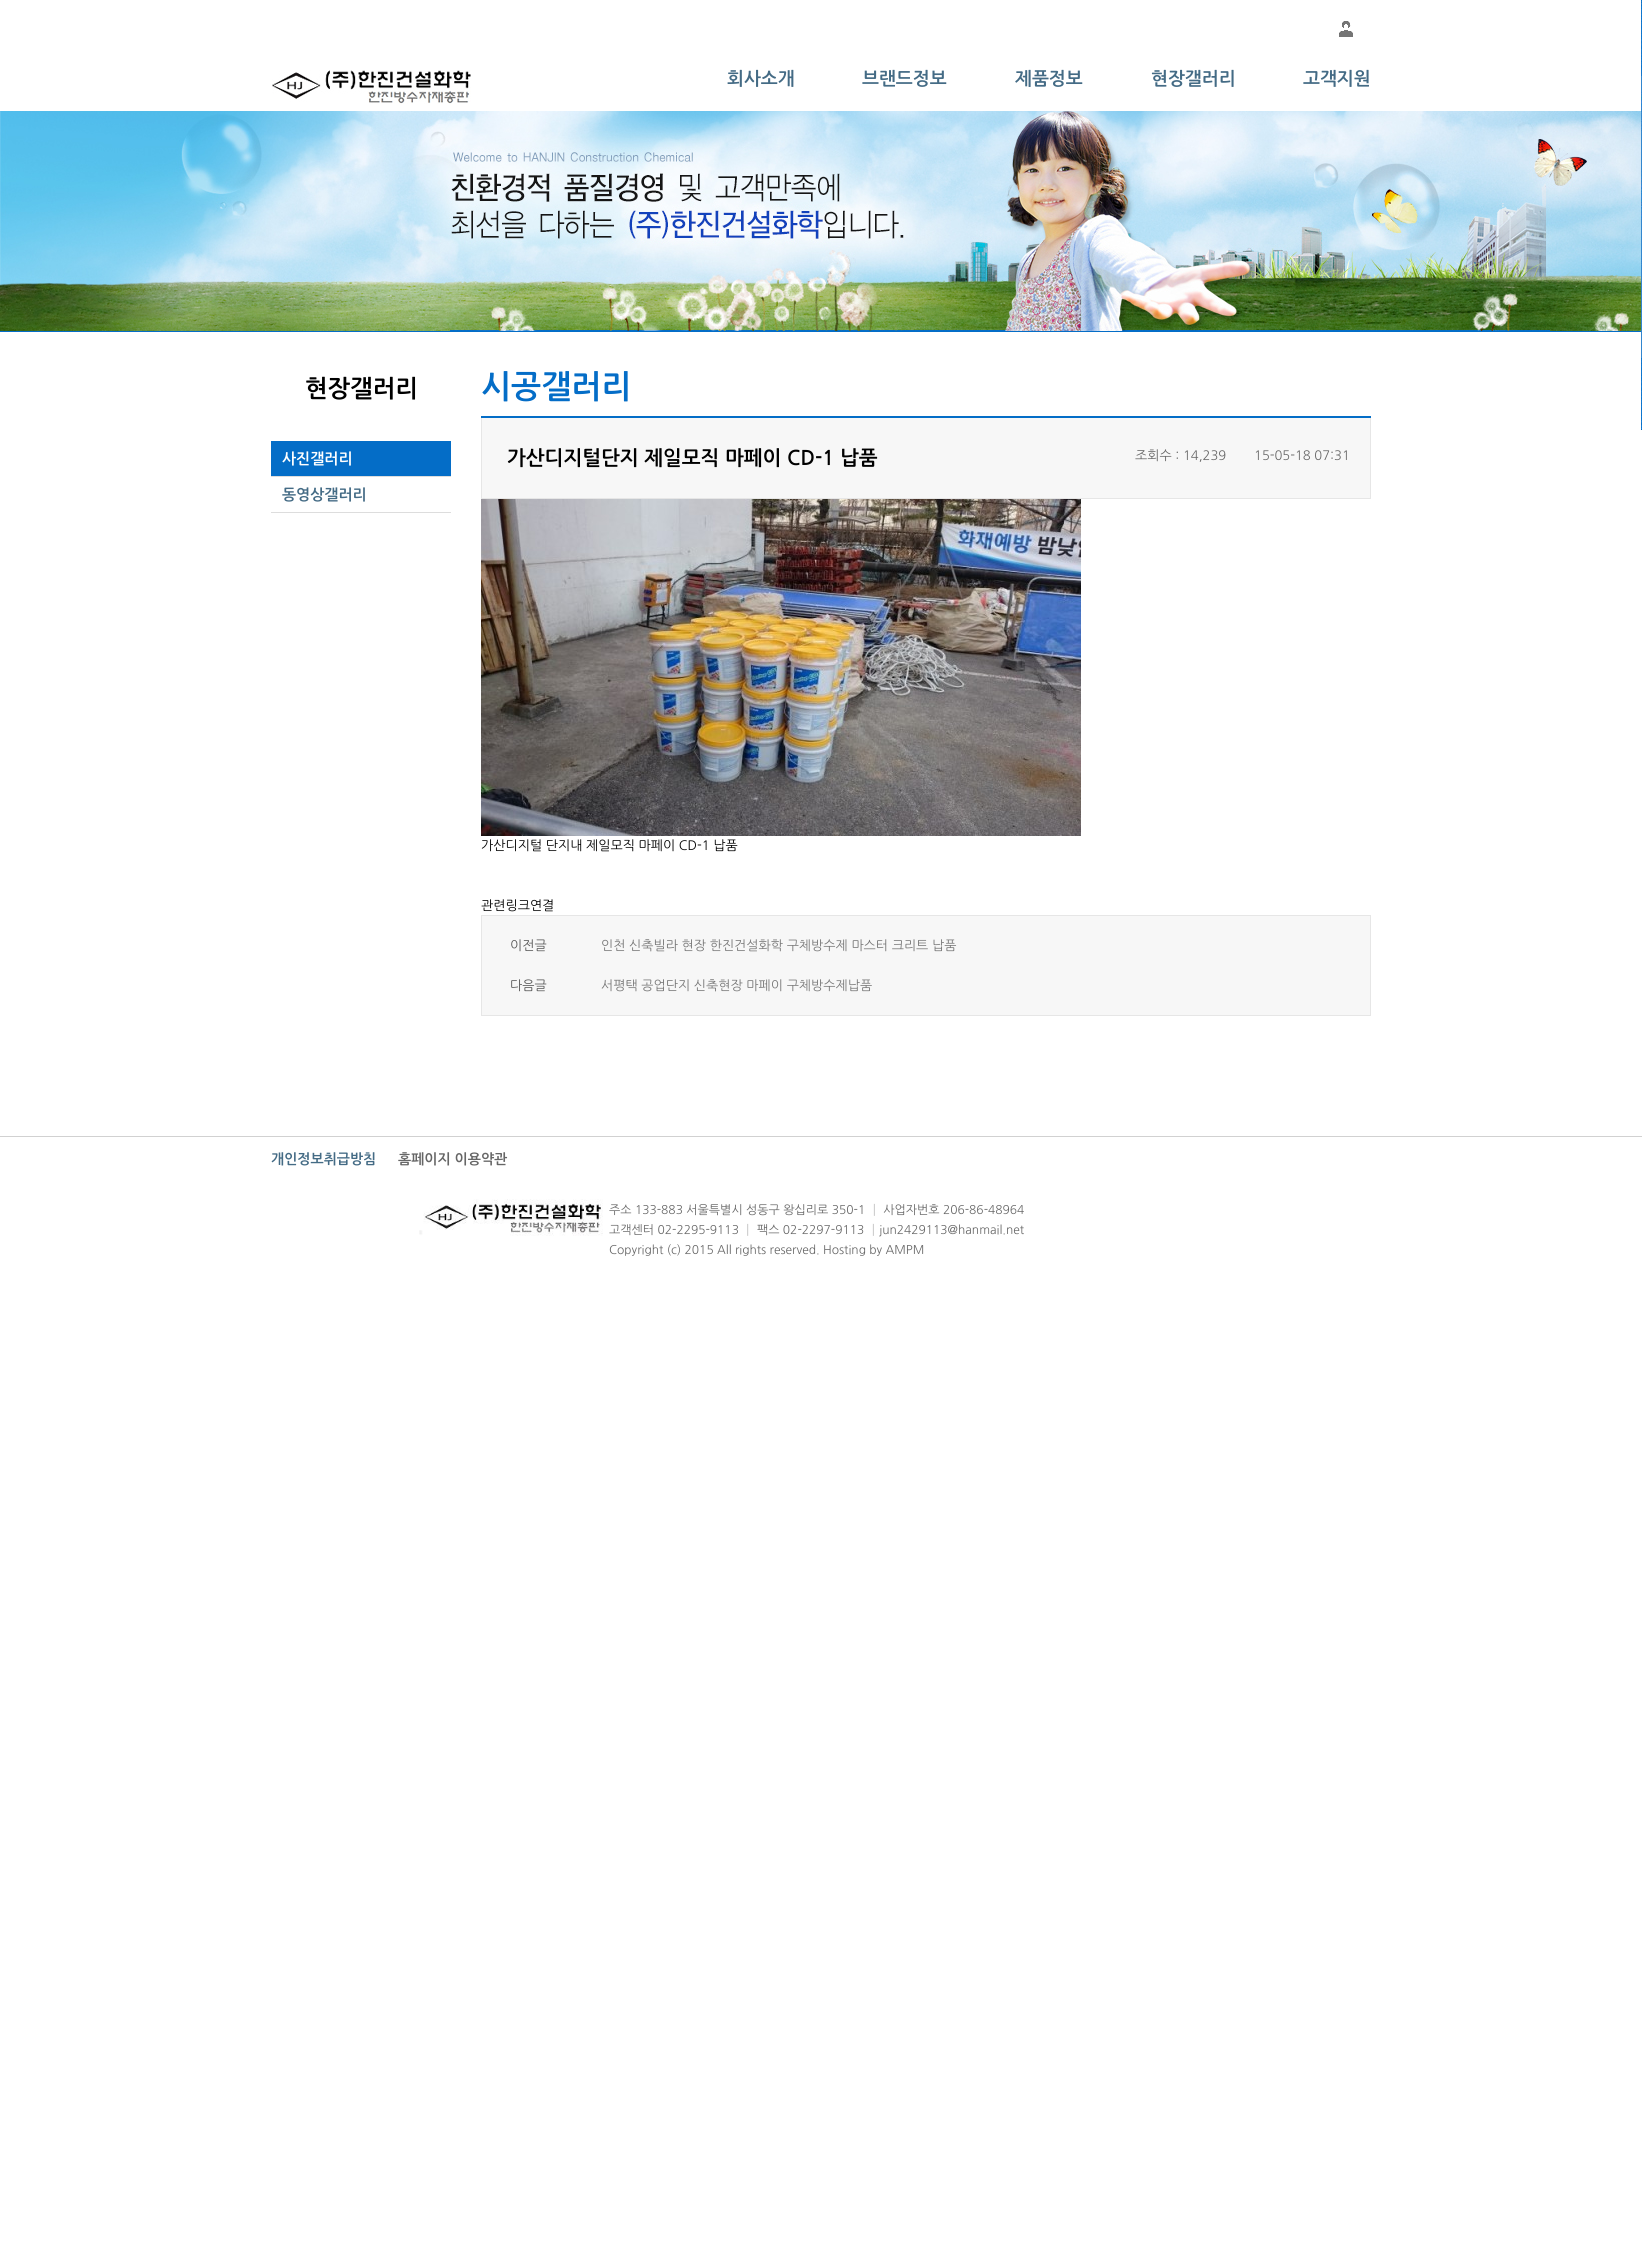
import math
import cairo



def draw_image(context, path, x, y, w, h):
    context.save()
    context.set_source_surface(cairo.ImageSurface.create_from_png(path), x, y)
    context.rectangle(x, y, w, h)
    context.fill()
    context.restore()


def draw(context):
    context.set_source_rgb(1, 1, 1)
    context.paint()
    draw_image(context, "images/1.png", 1339, 21, 14, 16)
    draw_image(context, "images/2.png", 272, 70, 199, 34)
    context.set_source_rgb(4 / 255, 109 / 255, 199 / 255)
    context.rectangle(0, 331, 1642, 1)
    context.fill()
    draw_image(context, "images/3.png", 0, 111, 1641, 220)
    draw_image(context, "images/4.png", 1641, 0, 1, 76)
    draw_image(context, "images/5.png", 1641, 76, 1, 95)
    draw_image(context, "images/6.png", 1641, 171, 1, 98)
    context.set_source_rgb(50 / 255, 134 / 255, 207 / 255)
    context.rectangle(1641, 269, 1, 89)
    context.fill()
    draw_image(context, "images/7.png", 1641, 358, 1, 72)
    context.set_source_rgb(221 / 255, 221 / 255, 221 / 255)
    context.rectangle(271, 476, 180, 1)
    context.fill()
    context.set_source_rgb(4 / 255, 109 / 255, 199 / 255)
    context.rectangle(271, 441, 180, 35)
    context.fill()
    context.set_source_rgb(221 / 255, 221 / 255, 221 / 255)
    context.rectangle(271, 512, 180, 1)
    context.fill()
    context.set_source_rgb(4 / 255, 109 / 255, 199 / 255)
    context.rectangle(481, 416, 890, 2)
    context.fill()
    context.set_source_rgb(247 / 255, 247 / 255, 247 / 255)
    context.rectangle(482, 418, 888, 80)
    context.fill()
    context.set_source_rgb(230 / 255, 230 / 255, 230 / 255)
    context.rectangle(1370, 418, 1, 81)
    context.fill()
    context.rectangle(481, 498, 890, 1)
    context.fill()
    context.rectangle(481, 418, 1, 81)
    context.fill()
    draw_image(context, "images/8.png", 481, 499, 600, 337)
    context.set_source_rgb(247 / 255, 247 / 255, 247 / 255)
    context.rectangle(481.5, 915.5, 889, 100)
    context.fill_preserve()
    context.set_source_rgb(230 / 255, 230 / 255, 230 / 255)
    context.set_line_width(1)
    context.stroke()
    context.set_source_rgb(209 / 255, 209 / 255, 209 / 255)
    context.rectangle(0, 1136, 1642, 1)
    context.fill()
    draw_image(context, "images/9.png", 419, 1199, 184, 37)
    context.select_font_face("NanumGothic", cairo.FontSlant.NORMAL, cairo.FontWeight.BOLD)
    context.set_font_size(18)
    context.set_source_rgb(68 / 255, 107 / 255, 133 / 255)
    context.move_to(727, 85)
    context.show_text("회사소개")
    context.move_to(862, 85)
    context.show_text("브랜드정보")
    context.move_to(1015, 85)
    context.show_text("제품정보")
    context.move_to(1151, 85)
    context.show_text("현장갤러리")
    context.move_to(1303, 85)
    context.show_text("고객지원")
    context.set_font_size(24)
    context.set_source_rgb(0, 0, 0)
    context.move_to(305, 397)
    context.show_text("현장갤러리")
    context.set_font_size(15)
    context.set_source_rgb(1, 1, 1)
    context.move_to(282, 464)
    context.show_text("사진갤러리")
    context.set_source_rgb(68 / 255, 107 / 255, 133 / 255)
    context.move_to(282, 500)
    context.show_text("동영상갤러리")
    context.set_font_size(32)
    context.set_source_rgb(4 / 255, 109 / 255, 199 / 255)
    context.move_to(481, 398)
    context.show_text("시공갤러리")
    context.set_font_size(20)
    context.set_source_rgb(0, 0, 0)
    context.move_to(507, 465)
    context.show_text("가산디지털단지 제일모직 마페이 CD-1 납품")
    context.select_font_face("NanumGothic")
    context.set_font_size(13)
    context.set_source_rgb(102 / 255, 102 / 255, 102 / 255)
    context.move_to(1135, 460)
    context.show_text("조회수 : 14,239")
    context.move_to(1254, 460)
    context.show_text("15-05-18 07:31")
    context.set_source_rgb(0, 0, 0)
    context.move_to(481, 850)
    context.show_text("가산디지털 단지내 제일모직 마페이 CD-1 납품")
    context.move_to(481, 910)
    context.show_text("관련링크연결")
    context.set_source_rgb(85 / 255, 85 / 255, 85 / 255)
    context.move_to(510, 950)
    context.show_text("이전글")
    context.set_source_rgb(119 / 255, 119 / 255, 119 / 255)
    context.move_to(601, 950)
    context.show_text("인천 신축빌라 현장 한진건설화학 구체방수제 마스터 크리트 납품")
    context.set_source_rgb(85 / 255, 85 / 255, 85 / 255)
    context.move_to(510, 990)
    context.show_text("다음글")
    context.set_source_rgb(119 / 255, 119 / 255, 119 / 255)
    context.move_to(601, 990)
    context.show_text("서평택 공업단지 신축현장 마페이 구체방수제납품")
    context.select_font_face("NanumGothic", cairo.FontSlant.NORMAL, cairo.FontWeight.BOLD)
    context.set_font_size(14)
    context.set_source_rgb(68 / 255, 107 / 255, 133 / 255)
    context.move_to(271, 1164)
    context.show_text("개인정보취급방침")
    context.set_source_rgb(102 / 255, 102 / 255, 102 / 255)
    context.move_to(398, 1164)
    context.show_text("홈페이지 이용약관")
    context.select_font_face("NanumGothic")
    context.set_font_size(12)
    context.move_to(609, 1214)
    context.show_text("주소 133-883 서울특별시 성동구 왕십리로 350-1 │ 사업자번호 206-86-48964")
    context.move_to(609, 1234)
    context.show_text("고객센터 02-2295-9113 │ 팩스 02-2297-9113 │jun2429113@hanmail.net")
    context.move_to(609, 1254)
    context.show_text("Copyright (c) 2015 All rights reserved. Hosting by AMPM")


surface = cairo.ImageSurface(cairo.Format.RGB24, 1642, 2241)
context = cairo.Context(surface)
options = cairo.FontOptions()
options.set_hint_metrics(cairo.HintMetrics.OFF)
options.set_hint_style(cairo.HintStyle.NONE)
context.set_font_options(options)
context.set_miter_limit(4)
draw(context)
surface.write_to_png("out.png")
